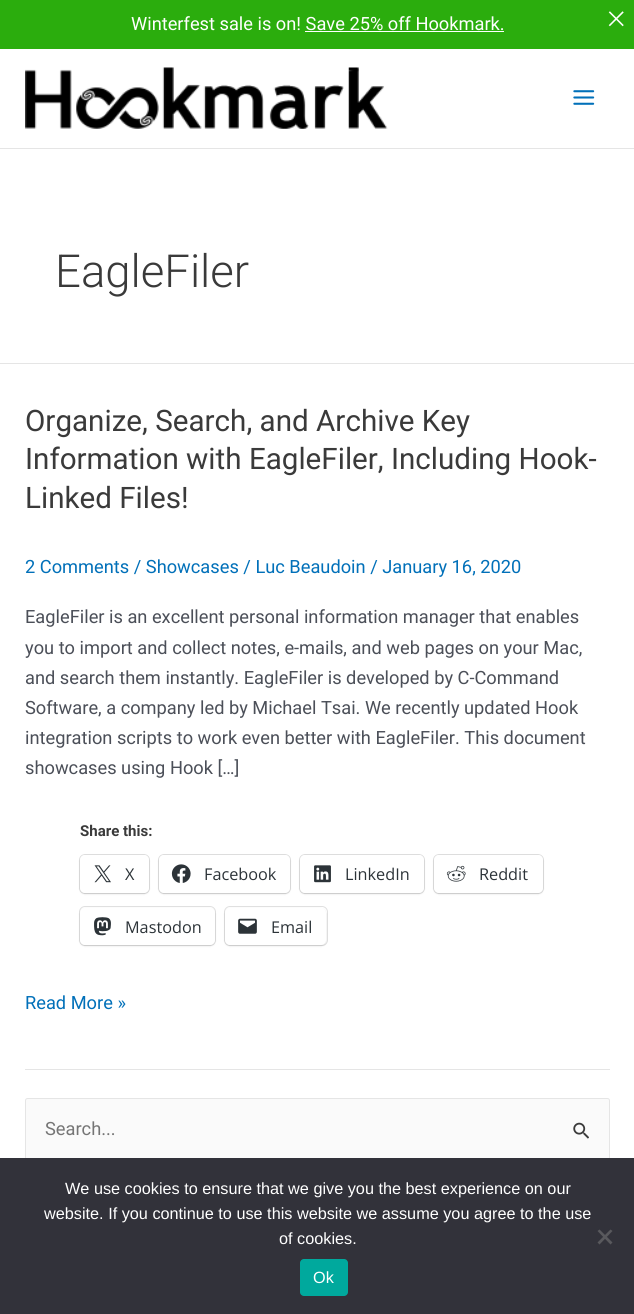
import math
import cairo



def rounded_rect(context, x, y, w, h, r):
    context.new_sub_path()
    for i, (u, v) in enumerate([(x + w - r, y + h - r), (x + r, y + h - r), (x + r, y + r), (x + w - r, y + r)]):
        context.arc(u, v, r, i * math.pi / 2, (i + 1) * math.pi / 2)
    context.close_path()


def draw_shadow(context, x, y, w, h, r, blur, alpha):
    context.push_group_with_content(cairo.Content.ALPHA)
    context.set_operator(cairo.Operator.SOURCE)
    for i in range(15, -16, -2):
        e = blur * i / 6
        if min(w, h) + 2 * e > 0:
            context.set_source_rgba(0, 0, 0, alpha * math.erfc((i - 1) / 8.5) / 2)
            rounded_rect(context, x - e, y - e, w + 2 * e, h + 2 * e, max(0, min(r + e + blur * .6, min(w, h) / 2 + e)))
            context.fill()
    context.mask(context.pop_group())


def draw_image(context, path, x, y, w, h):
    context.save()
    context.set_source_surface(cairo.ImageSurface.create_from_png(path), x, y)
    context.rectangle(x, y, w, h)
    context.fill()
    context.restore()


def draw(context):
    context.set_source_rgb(1, 1, 1)
    context.paint()
    context.set_source_rgb(43 / 255, 173 / 255, 13 / 255)
    context.rectangle(0, 0, 634, 49)
    context.fill()
    context.set_source_rgb(1, 1, 1)
    context.rectangle(305, 31, 199, 1)
    context.fill()
    draw_image(context, "images/1.png", 608, 11, 16, 16)
    context.set_source_rgb(229 / 255, 229 / 255, 229 / 255)
    context.rectangle(0, 148, 634, 1)
    context.fill()
    draw_image(context, "images/2.png", 25, 67, 363, 62)
    draw_image(context, "images/3.png", 573, 90, 22, 15)
    context.rectangle(0, 363, 634, 1)
    context.fill()
    context.rectangle(25, 1069, 585, 1)
    context.fill()
    rounded_rect(context, 79.5, 854.5, 70, 39, 5.5)
    context.set_source_rgb(224 / 255, 224 / 255, 224 / 255)
    context.set_line_width(1)
    context.stroke()
    context.set_source_rgb(0, 0, 0)
    draw_shadow(context, 80, 856, 69, 38, 5, 1, 0.12)
    context.set_source_rgb(1, 1, 1)
    rounded_rect(context, 80, 855, 69, 38, 5)
    context.fill()
    draw_image(context, "images/4.png", 94, 865, 17, 18)
    rounded_rect(context, 158.5, 854.5, 132, 39, 5.5)
    context.set_source_rgb(224 / 255, 224 / 255, 224 / 255)
    context.stroke()
    context.set_source_rgb(0, 0, 0)
    draw_shadow(context, 159, 856, 131, 38, 5, 1, 0.12)
    context.set_source_rgb(1, 1, 1)
    rounded_rect(context, 159, 855, 131, 38, 5)
    context.fill()
    draw_image(context, "images/5.png", 171, 864, 20, 19)
    rounded_rect(context, 299.5, 854.5, 125, 39, 5.5)
    context.set_source_rgb(224 / 255, 224 / 255, 224 / 255)
    context.stroke()
    context.set_source_rgb(0, 0, 0)
    draw_shadow(context, 300, 856, 124, 38, 5, 1, 0.12)
    context.set_source_rgb(1, 1, 1)
    rounded_rect(context, 300, 855, 124, 38, 5)
    context.fill()
    draw_image(context, "images/6.png", 314, 865, 17, 18)
    rounded_rect(context, 433.5, 854.5, 110, 39, 5.5)
    context.set_source_rgb(224 / 255, 224 / 255, 224 / 255)
    context.stroke()
    context.set_source_rgb(0, 0, 0)
    draw_shadow(context, 434, 856, 109, 38, 5, 1, 0.12)
    context.set_source_rgb(1, 1, 1)
    rounded_rect(context, 434, 855, 109, 38, 5)
    context.fill()
    draw_image(context, "images/7.png", 446, 865, 20, 17)
    rounded_rect(context, 79.5, 906.5, 136, 39, 5.5)
    context.set_source_rgb(224 / 255, 224 / 255, 224 / 255)
    context.stroke()
    context.set_source_rgb(0, 0, 0)
    draw_shadow(context, 80, 909, 135, 37, 5, 1, 0.12)
    context.set_source_rgb(1, 1, 1)
    rounded_rect(context, 80, 908, 135, 37, 5)
    context.fill()
    draw_image(context, "images/8.png", 94, 917, 17, 19)
    rounded_rect(context, 224.5, 906.5, 103, 39, 5.5)
    context.set_source_rgb(224 / 255, 224 / 255, 224 / 255)
    context.stroke()
    context.set_source_rgb(0, 0, 0)
    draw_shadow(context, 225, 909, 101, 37, 5, 1, 0.12)
    context.set_source_rgb(1, 1, 1)
    rounded_rect(context, 225, 908, 101, 37, 5)
    context.fill()
    draw_image(context, "images/9.png", 238, 918, 19, 16)
    context.set_source_rgb(250 / 255, 250 / 255, 250 / 255)
    rounded_rect(context, 25.5, 1098.5, 584, 61, 2)
    context.fill_preserve()
    context.set_source_rgb(229 / 255, 229 / 255, 229 / 255)
    context.stroke()
    draw_image(context, "images/10.png", 573, 1122, 16, 17)
    context.set_source_rgb(50 / 255, 50 / 255, 58 / 255)
    context.rectangle(0, 1158, 634, 156)
    context.fill()
    context.set_source_rgb(89 / 255, 89 / 255, 93 / 255)
    context.new_path()
    context.move_to(610.5, 1229.5)
    context.line_to(612.5, 1231)
    context.line_to(599.5, 1244.5)
    context.line_to(597.5, 1242.5)
    context.close_path()
    context.fill()
    context.new_path()
    context.move_to(597.5, 1231)
    context.line_to(599.5, 1229.5)
    context.line_to(612.5, 1242.5)
    context.line_to(610.5, 1244.5)
    context.close_path()
    context.fill()
    context.set_source_rgb(0, 169 / 255, 157 / 255)
    rounded_rect(context, 300, 1259, 48, 37, 4)
    context.fill()
    context.select_font_face("Roboto")
    context.set_font_size(18.25)
    context.set_source_rgb(1, 1, 1)
    context.move_to(131, 30)
    context.show_text("Winterfest sale is on! Save 25% off Hookmark.")
    context.select_font_face("Roboto Light")
    context.set_font_size(45.5)
    context.set_source_rgb(58 / 255, 58 / 255, 58 / 255)
    context.move_to(55, 287)
    context.show_text("EagleFiler")
    context.select_font_face("Roboto")
    context.set_font_size(29.6)
    context.move_to(25, 431)
    context.show_text("Organize, Search, and Archive Key")
    context.move_to(25, 469)
    context.show_text("Information with EagleFiler, Including Hook-")
    context.move_to(25, 508)
    context.show_text("Linked Files!")
    context.set_font_size(18.25)
    context.set_source_rgb(1 / 255, 112 / 255, 185 / 255)
    context.move_to(25, 573)
    context.show_text("2 Comments / Showcases / Luc Beaudoin / January 16, 2020")
    context.set_source_rgb(75 / 255, 79 / 255, 88 / 255)
    context.move_to(25, 623)
    context.show_text("EagleFiler is an excellent personal information manager that enables")
    context.move_to(25, 654)
    context.show_text("you to import and collect notes, e-mails, and web pages on your Mac,")
    context.move_to(25, 684)
    context.show_text("and search them instantly. EagleFiler is developed by C-Command")
    context.move_to(25, 714)
    context.show_text("Software, a company led by Michael Tsai. We recently updated Hook")
    context.move_to(25, 744)
    context.show_text("integration scripts to work even better with EagleFiler. This document")
    context.move_to(25, 774)
    context.show_text("showcases using Hook […]")
    context.select_font_face("Roboto", cairo.FontSlant.NORMAL, cairo.FontWeight.BOLD)
    context.set_font_size(15)
    context.set_source_rgb(58 / 255, 58 / 255, 58 / 255)
    context.move_to(80, 836)
    context.show_text("Share this:")
    context.select_font_face("Open Sans")
    context.set_font_size(16.25)
    context.set_source_rgb(44 / 255, 51 / 255, 56 / 255)
    context.move_to(125, 880)
    context.show_text("X")
    context.move_to(204, 880)
    context.show_text("Facebook")
    context.move_to(345, 880)
    context.show_text("LinkedIn")
    context.move_to(479, 880)
    context.show_text("Reddit")
    context.move_to(125, 933)
    context.show_text("Mastodon")
    context.move_to(271, 933)
    context.show_text("Email")
    context.select_font_face("Roboto")
    context.set_font_size(18.25)
    context.set_source_rgb(1 / 255, 112 / 255, 185 / 255)
    context.move_to(25, 1009)
    context.show_text("Read More »")
    context.set_source_rgb(117 / 255, 117 / 255, 117 / 255)
    context.move_to(45, 1135)
    context.show_text("Search...")
    context.select_font_face("Liberation Sans")
    context.set_font_size(16.25)
    context.set_source_rgb(1, 1, 1)
    context.move_to(65, 1194)
    context.show_text("We use cookies to ensure that we give you the best experience on our")
    context.move_to(44, 1219)
    context.show_text("website. If you continue to use this website we assume you agree to the use")
    context.move_to(279, 1244)
    context.show_text("of cookies.")
    context.move_to(313, 1283)
    context.show_text("Ok")


surface = cairo.ImageSurface(cairo.Format.RGB24, 634, 1314)
context = cairo.Context(surface)
options = cairo.FontOptions()
options.set_hint_metrics(cairo.HintMetrics.OFF)
options.set_hint_style(cairo.HintStyle.NONE)
context.set_font_options(options)
context.set_miter_limit(4)
draw(context)
surface.write_to_png("out.png")
